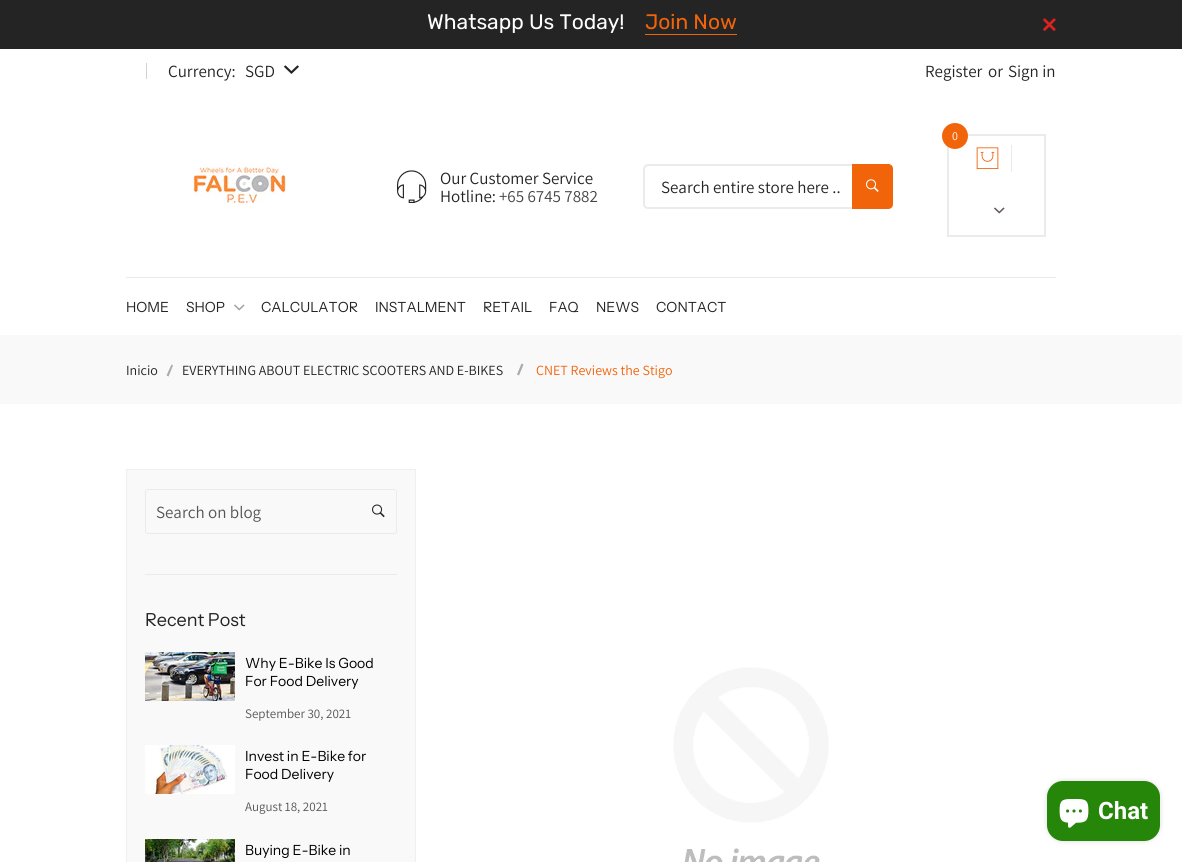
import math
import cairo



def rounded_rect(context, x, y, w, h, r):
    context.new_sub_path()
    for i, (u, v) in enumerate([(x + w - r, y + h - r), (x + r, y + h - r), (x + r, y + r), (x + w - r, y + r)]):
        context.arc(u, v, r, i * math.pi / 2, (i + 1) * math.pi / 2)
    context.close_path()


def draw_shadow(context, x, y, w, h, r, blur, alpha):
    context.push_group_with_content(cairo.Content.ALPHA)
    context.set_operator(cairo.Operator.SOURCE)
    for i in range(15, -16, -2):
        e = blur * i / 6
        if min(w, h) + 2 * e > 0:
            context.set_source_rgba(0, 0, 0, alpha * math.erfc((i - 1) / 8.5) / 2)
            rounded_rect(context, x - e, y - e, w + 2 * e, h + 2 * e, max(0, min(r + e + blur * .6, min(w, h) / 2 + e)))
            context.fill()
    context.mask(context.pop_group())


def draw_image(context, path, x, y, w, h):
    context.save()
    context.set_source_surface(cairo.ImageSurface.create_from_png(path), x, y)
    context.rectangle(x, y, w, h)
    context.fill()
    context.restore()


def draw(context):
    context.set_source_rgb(1, 1, 1)
    context.paint()
    context.set_source_rgb(36 / 255, 36 / 255, 36 / 255)
    context.rectangle(0, 0, 1182, 49)
    context.fill()
    context.set_source_rgb(242 / 255, 100 / 255, 10 / 255)
    context.rectangle(645, 34, 92, 1)
    context.fill()
    draw_image(context, "images/1.png", 1043, 18, 13, 13)
    context.set_source_rgb(211 / 255, 211 / 255, 211 / 255)
    context.rectangle(146, 63, 1, 16)
    context.fill()
    draw_image(context, "images/2.png", 284, 65, 15, 9)
    context.rectangle(948, 135, 97, 101)
    context.set_source_rgb(235 / 255, 235 / 255, 235 / 255)
    context.stroke()
    context.set_source_rgb(242 / 255, 100 / 255, 10 / 255)
    context.arc(955, 136, 13, 0, 2 * math.pi)
    context.fill()
    context.set_source_rgb(235 / 255, 235 / 255, 235 / 255)
    context.rectangle(1011, 145, 1, 27)
    context.fill()
    draw_image(context, "images/3.png", 976, 147, 23, 22)
    draw_image(context, "images/4.png", 994, 207, 11, 7)
    draw_image(context, "images/5.png", 193, 164, 93, 41)
    draw_image(context, "images/6.png", 397, 170, 30, 33)
    rounded_rect(context, 644, 165, 248, 43, 4)
    context.stroke()
    context.set_source_rgb(242 / 255, 100 / 255, 10 / 255)
    context.new_path()
    context.move_to(852, 164)
    context.line_to(888, 164)
    context.curve_to(891, 164, 893, 166, 893, 169)
    context.line_to(893, 204)
    context.curve_to(893, 207, 891, 209, 888, 209)
    context.line_to(852, 209)
    context.close_path()
    context.fill()
    draw_image(context, "images/7.png", 866, 179, 13, 13)
    context.set_source_rgb(235 / 255, 235 / 255, 235 / 255)
    context.rectangle(126, 277, 930, 1)
    context.fill()
    draw_image(context, "images/8.png", 234, 304, 11, 7)
    context.set_source_rgb(249 / 255, 249 / 255, 249 / 255)
    context.rectangle(0, 335, 1182, 69)
    context.fill()
    context.set_source_rgb(170 / 255, 170 / 255, 170 / 255)
    context.new_path()
    context.move_to(166.5, 375.5)
    context.line_to(171.5, 364.5)
    context.line_to(173, 365.5)
    context.line_to(168.5, 376.5)
    context.close_path()
    context.fill()
    context.new_path()
    context.move_to(517, 374.5)
    context.line_to(521.5, 363.5)
    context.line_to(523.5, 364.5)
    context.line_to(519, 375.5)
    context.close_path()
    context.fill()
    context.set_source_rgb(249 / 255, 249 / 255, 249 / 255)
    context.rectangle(126.5, 469.5, 289, 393)
    context.fill_preserve()
    context.set_source_rgb(239 / 255, 239 / 255, 239 / 255)
    context.set_line_width(1)
    context.stroke()
    rounded_rect(context, 145.5, 489.5, 251, 44, 2.5)
    context.set_source_rgb(235 / 255, 235 / 255, 235 / 255)
    context.stroke()
    draw_image(context, "images/9.png", 372, 504, 13, 14)
    context.rectangle(145, 574, 252, 1)
    context.fill()
    draw_image(context, "images/10.png", 145, 652, 90, 49)
    draw_image(context, "images/11.png", 145, 745, 90, 49)
    draw_image(context, "images/12.png", 145, 839, 90, 23)
    draw_image(context, "images/13.png", 673, 667, 156, 195)
    context.set_source_rgb(0, 0, 0)
    draw_shadow(context, 1047, 781, 113, 60, 16, 2.5, 0.15)
    context.set_source_rgb(37 / 255, 134 / 255, 10 / 255)
    rounded_rect(context, 1047, 781, 113, 60, 16)
    context.fill()
    draw_image(context, "images/14.png", 1059, 799, 30, 29)
    context.select_font_face("Rubik")
    context.set_font_size(21)
    context.set_source_rgb(1, 1, 1)
    context.move_to(427, 29)
    context.show_text("Whatsapp Us Today!")
    context.set_source_rgb(242 / 255, 100 / 255, 10 / 255)
    context.move_to(645, 29)
    context.show_text("Join Now")
    context.select_font_face("Assistant")
    context.set_font_size(17)
    context.set_source_rgb(36 / 255, 36 / 255, 36 / 255)
    context.move_to(168, 77)
    context.show_text("Currency:")
    context.move_to(245, 77)
    context.show_text("SGD")
    context.move_to(925, 77)
    context.show_text("Register")
    context.move_to(988, 77)
    context.show_text("or")
    context.move_to(1008, 77)
    context.show_text("Sign in")
    context.set_font_size(12)
    context.set_source_rgb(1, 1, 1)
    context.move_to(952, 140)
    context.show_text("0")
    context.set_font_size(17)
    context.set_source_rgb(36 / 255, 36 / 255, 36 / 255)
    context.move_to(440, 184)
    context.show_text("Our Customer Service")
    context.move_to(440, 202)
    context.show_text("Hotline:")
    context.set_source_rgb(69 / 255, 69 / 255, 69 / 255)
    context.move_to(499, 202)
    context.show_text("+65 6745 7882")
    context.set_source_rgb(36 / 255, 36 / 255, 36 / 255)
    context.move_to(661, 193)
    context.show_text("Search entire store here ..")
    context.select_font_face("Instrument Sans")
    context.set_font_size(14)
    context.move_to(126, 312)
    context.show_text("HOME")
    context.move_to(186, 312)
    context.show_text("SHOP")
    context.move_to(261, 312)
    context.show_text("CALCULATOR")
    context.move_to(375, 312)
    context.show_text("INSTALMENT")
    context.move_to(483, 312)
    context.show_text("RETAIL")
    context.move_to(549, 312)
    context.show_text("FAQ")
    context.move_to(596, 312)
    context.show_text("NEWS")
    context.move_to(656, 312)
    context.show_text("CONTACT")
    context.select_font_face("Assistant")
    context.move_to(126, 375)
    context.show_text("Inicio")
    context.move_to(182, 375)
    context.show_text("EVERYTHING ABOUT ELECTRIC SCOOTERS AND E-BIKES")
    context.set_source_rgb(242 / 255, 100 / 255, 10 / 255)
    context.move_to(536, 375)
    context.show_text("CNET Reviews the Stigo")
    context.set_font_size(17)
    context.set_source_rgb(85 / 255, 85 / 255, 85 / 255)
    context.move_to(156, 518)
    context.show_text("Search on blog")
    context.select_font_face("Instrument Sans")
    context.set_font_size(18)
    context.set_source_rgb(36 / 255, 36 / 255, 36 / 255)
    context.move_to(145, 626)
    context.show_text("Recent Post")
    context.set_font_size(14)
    context.set_source_rgb(0, 0, 0)
    context.move_to(245, 668)
    context.show_text("Why E-Bike Is Good")
    context.move_to(245, 686)
    context.show_text("For Food Delivery")
    context.select_font_face("Assistant")
    context.set_font_size(13)
    context.set_source_rgb(85 / 255, 85 / 255, 85 / 255)
    context.move_to(245, 718)
    context.show_text("September 30, 2021")
    context.select_font_face("Instrument Sans")
    context.set_font_size(14)
    context.set_source_rgb(0, 0, 0)
    context.move_to(245, 761)
    context.show_text("Invest in E-Bike for")
    context.move_to(245, 779)
    context.show_text("Food Delivery")
    context.select_font_face("Assistant")
    context.set_font_size(13)
    context.set_source_rgb(85 / 255, 85 / 255, 85 / 255)
    context.move_to(245, 811)
    context.show_text("August 18, 2021")
    context.select_font_face("Instrument Sans")
    context.set_font_size(14)
    context.set_source_rgb(0, 0, 0)
    context.move_to(245, 855)
    context.show_text("Buying E-Bike in")
    context.select_font_face("Roboto", cairo.FontSlant.NORMAL, cairo.FontWeight.BOLD)
    context.set_font_size(24)
    context.set_source_rgb(1, 1, 1)
    context.move_to(1098, 819)
    context.show_text("Chat")


surface = cairo.ImageSurface(cairo.Format.RGB24, 1182, 862)
context = cairo.Context(surface)
options = cairo.FontOptions()
options.set_hint_metrics(cairo.HintMetrics.OFF)
options.set_hint_style(cairo.HintStyle.NONE)
context.set_font_options(options)
context.set_miter_limit(4)
draw(context)
surface.write_to_png("out.png")
